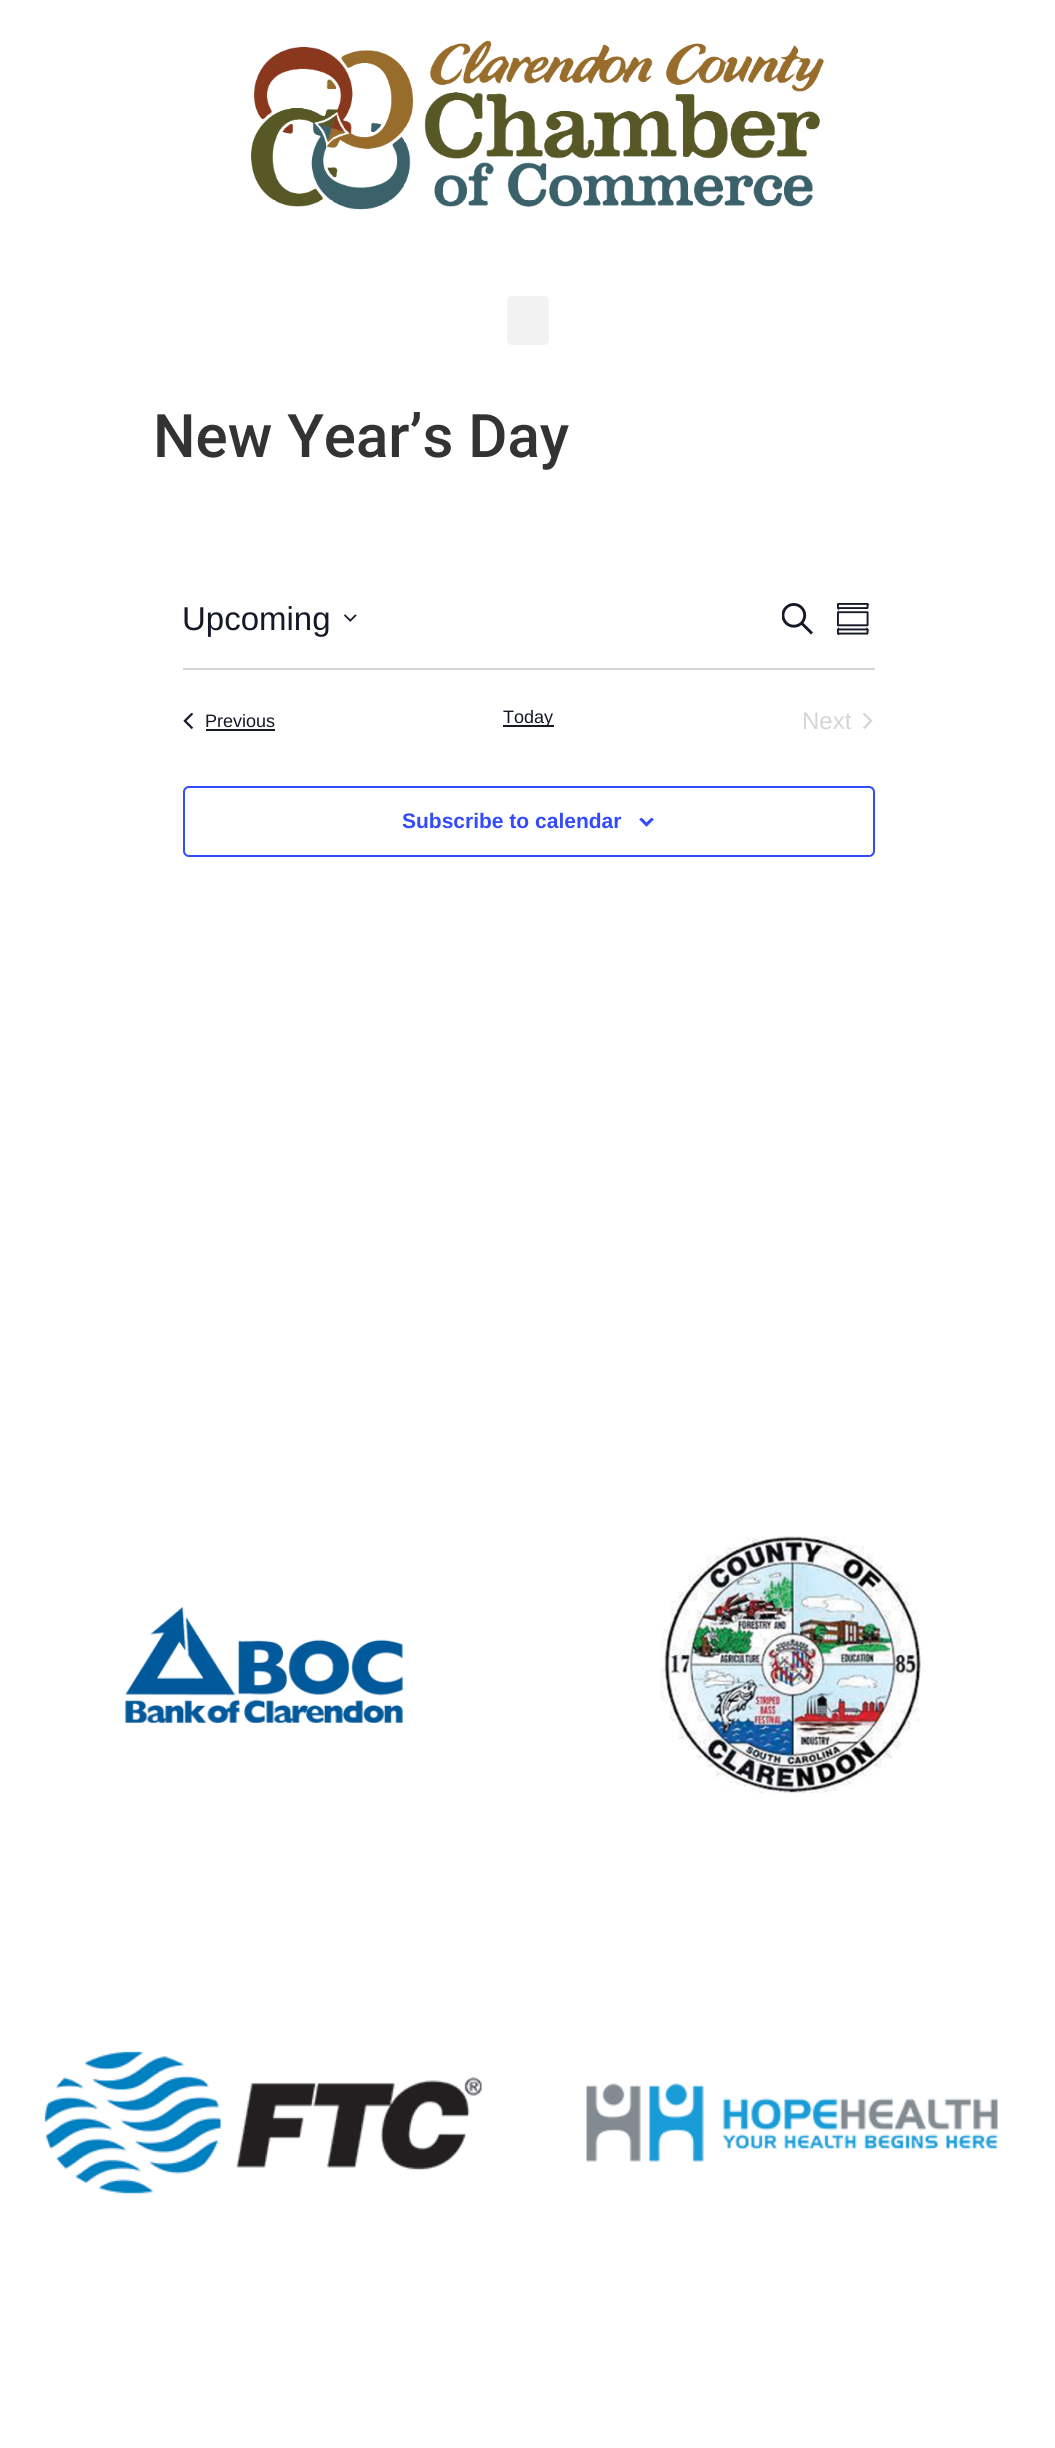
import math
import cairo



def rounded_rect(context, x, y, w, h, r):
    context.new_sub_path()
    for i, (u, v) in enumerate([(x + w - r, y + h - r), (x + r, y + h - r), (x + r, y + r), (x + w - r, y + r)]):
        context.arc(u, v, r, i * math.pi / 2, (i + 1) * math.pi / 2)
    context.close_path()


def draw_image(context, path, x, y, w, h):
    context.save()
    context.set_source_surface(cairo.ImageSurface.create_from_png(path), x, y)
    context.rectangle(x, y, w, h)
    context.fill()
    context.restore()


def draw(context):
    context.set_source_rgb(1, 1, 1)
    context.paint()
    draw_image(context, "images/1.png", 251, 40, 573, 170)
    context.set_source_rgb(242 / 255, 242 / 255, 242 / 255)
    rounded_rect(context, 507, 296, 42, 49, 5)
    context.fill()
    draw_image(context, "images/2.png", 344, 614, 13, 8)
    draw_image(context, "images/3.png", 782, 603, 31, 32)
    draw_image(context, "images/4.png", 837, 603, 32, 32)
    context.set_source_rgb(213 / 255, 213 / 255, 213 / 255)
    context.rectangle(183, 668, 692, 2)
    context.fill()
    draw_image(context, "images/5.png", 183, 713, 11, 16)
    context.set_source_rgb(20 / 255, 24 / 255, 39 / 255)
    context.rectangle(206, 729, 69, 2)
    context.fill()
    context.rectangle(503, 725, 51, 2)
    context.fill()
    draw_image(context, "images/6.png", 863, 713, 10, 16)
    rounded_rect(context, 184, 787, 690, 69, 5)
    context.set_source_rgb(51 / 255, 74 / 255, 1)
    context.stroke()
    draw_image(context, "images/7.png", 639, 818, 15, 9)
    draw_image(context, "images/8.png", 125, 1607, 278, 116)
    draw_image(context, "images/9.png", 660, 1536, 263, 257)
    draw_image(context, "images/10.png", 44, 2051, 438, 143)
    draw_image(context, "images/11.png", 586, 2083, 412, 79)
    context.select_font_face("Roboto Medium")
    context.set_font_size(60)
    context.set_source_rgb(51 / 255, 51 / 255, 51 / 255)
    context.move_to(153, 457)
    context.show_text("New Year’s Day")
    context.select_font_face("Liberation Sans")
    context.set_font_size(33)
    context.set_source_rgb(20 / 255, 24 / 255, 39 / 255)
    context.move_to(182, 630)
    context.show_text("Upcoming")
    context.set_font_size(18)
    context.move_to(205, 727)
    context.show_text("Previous")
    context.move_to(503, 723)
    context.show_text("Today")
    context.set_font_size(24)
    context.set_source_rgb(213 / 255, 213 / 255, 213 / 255)
    context.move_to(802, 729)
    context.show_text("Next")
    context.select_font_face("Liberation Sans", cairo.FontSlant.NORMAL, cairo.FontWeight.BOLD)
    context.set_font_size(21)
    context.set_source_rgb(51 / 255, 74 / 255, 1)
    context.move_to(402, 828)
    context.show_text("Subscribe to calendar")


surface = cairo.ImageSurface(cairo.Format.RGB24, 1055, 2448)
context = cairo.Context(surface)
options = cairo.FontOptions()
options.set_hint_metrics(cairo.HintMetrics.OFF)
options.set_hint_style(cairo.HintStyle.NONE)
context.set_font_options(options)
context.set_miter_limit(4)
draw(context)
surface.write_to_png("out.png")
